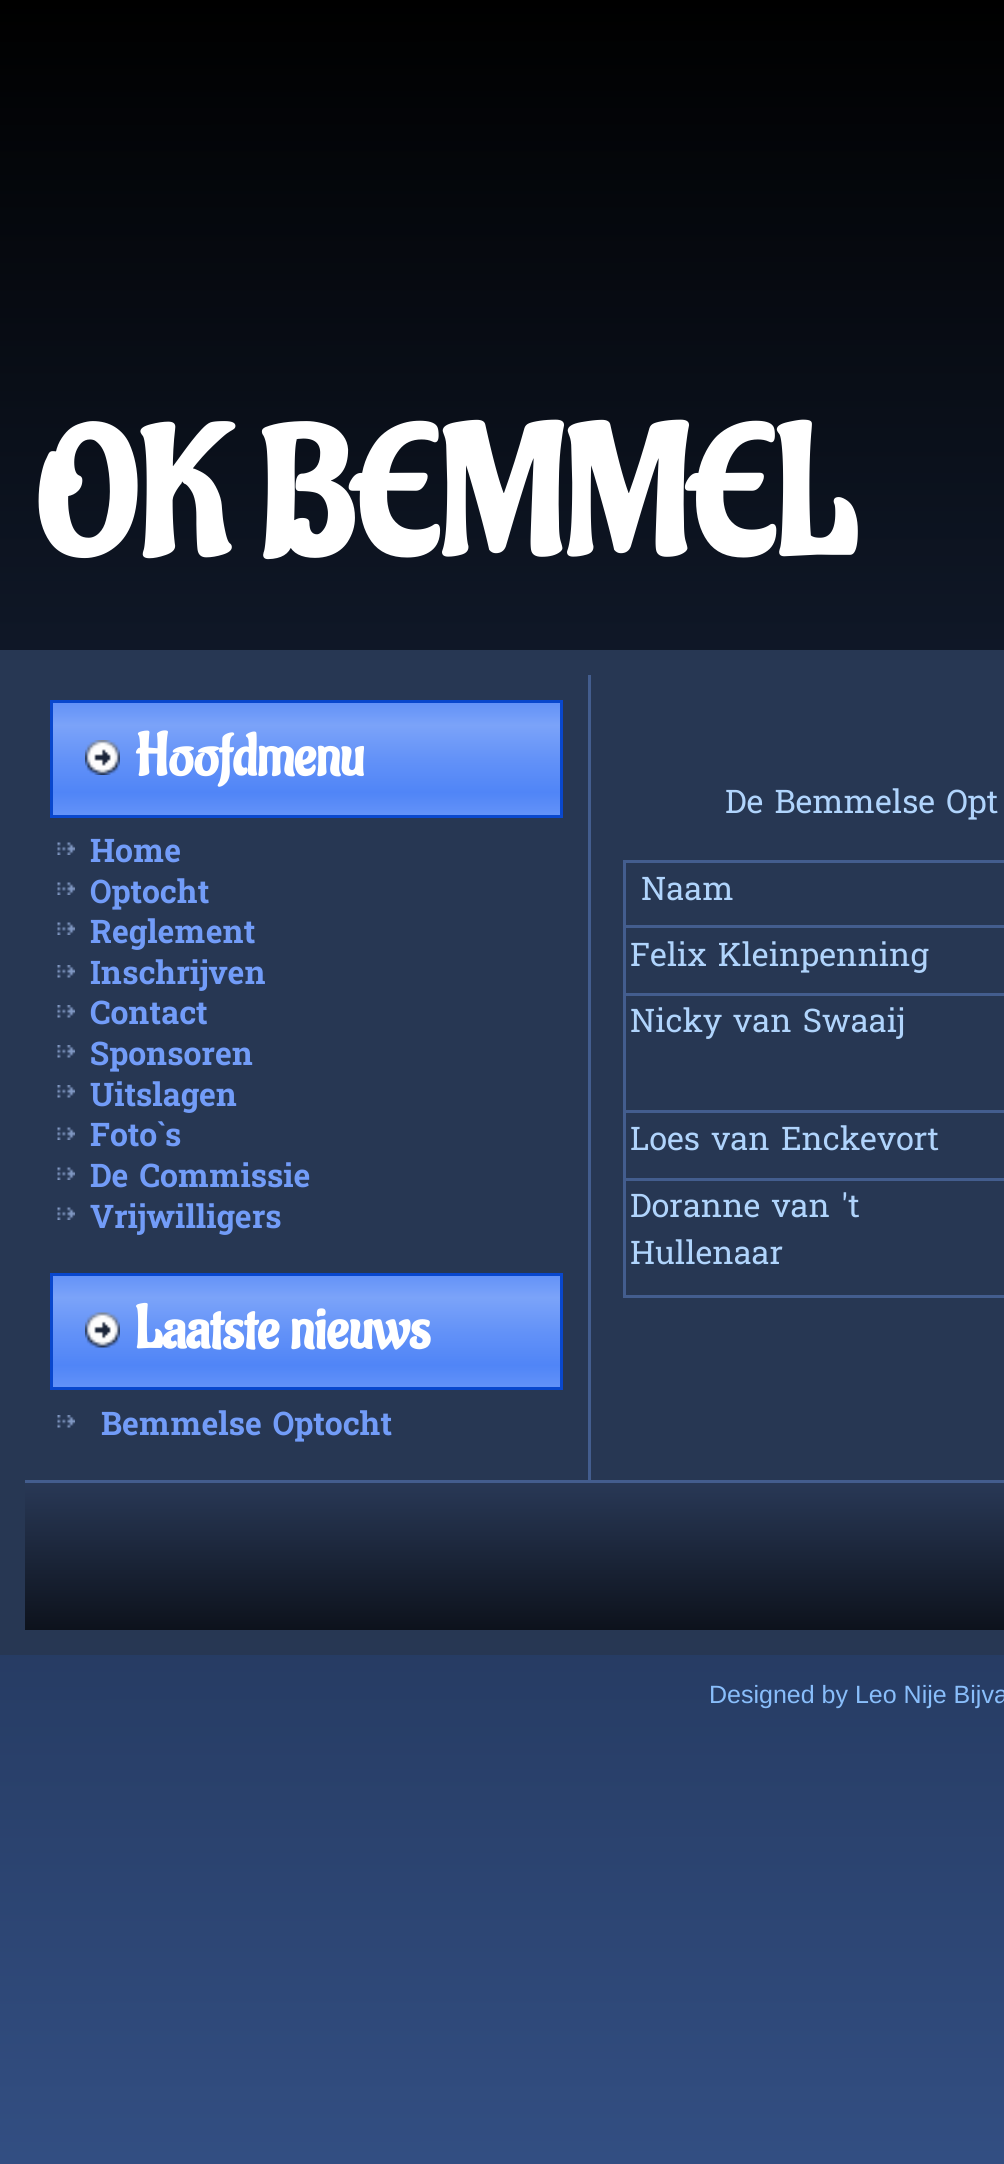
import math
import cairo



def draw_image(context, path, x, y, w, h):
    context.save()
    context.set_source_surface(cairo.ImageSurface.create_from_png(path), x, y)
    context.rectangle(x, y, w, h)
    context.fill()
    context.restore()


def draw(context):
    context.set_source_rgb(1, 1, 1)
    context.paint()
    gradient = cairo.LinearGradient(502, 0, 503, 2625)
    gradient.add_color_stop_rgba(0, 0, 0, 0, 1)
    gradient.add_color_stop_rgba(1, 61 / 255, 95 / 255, 158 / 255, 1)
    context.set_source(gradient)
    context.rectangle(0, 0, 1004, 2164)
    context.fill()
    context.set_source_rgb(39 / 255, 55 / 255, 83 / 255)
    context.rectangle(0, 650, 1004, 1005)
    context.fill()
    context.set_source_rgb(67 / 255, 93 / 255, 142 / 255)
    context.rectangle(588, 675, 3, 805)
    context.fill()
    gradient = cairo.LinearGradient(306, 703, 306, 815)
    gradient.add_color_stop_rgba(0, 99 / 255, 146 / 255, 248 / 255, 1)
    gradient.add_color_stop_rgba(0.2, 123 / 255, 163 / 255, 249 / 255, 1)
    gradient.add_color_stop_rgba(0.5, 99 / 255, 146 / 255, 248 / 255, 1)
    gradient.add_color_stop_rgba(0.8, 80 / 255, 133 / 255, 247 / 255, 1)
    gradient.add_color_stop_rgba(1, 99 / 255, 146 / 255, 248 / 255, 1)
    context.set_source(gradient)
    context.rectangle(53, 703, 507, 112)
    context.fill()
    context.rectangle(51.5, 701.5, 510, 115)
    context.set_source_rgb(9 / 255, 71 / 255, 205 / 255)
    context.set_line_width(3)
    context.stroke()
    draw_image(context, "images/1.png", 85, 740, 35, 35)
    draw_image(context, "images/2.png", 57, 842, 18, 13)
    draw_image(context, "images/2.png", 57, 882, 18, 13)
    draw_image(context, "images/2.png", 57, 922, 18, 13)
    draw_image(context, "images/3.png", 57, 965, 18, 13)
    draw_image(context, "images/3.png", 57, 1005, 18, 13)
    draw_image(context, "images/3.png", 57, 1045, 18, 13)
    draw_image(context, "images/3.png", 57, 1085, 18, 13)
    draw_image(context, "images/2.png", 57, 1127, 18, 13)
    draw_image(context, "images/4.png", 57, 1167, 18, 13)
    draw_image(context, "images/2.png", 57, 1207, 18, 13)
    gradient = cairo.LinearGradient(306, 1275, 306, 1388)
    gradient.add_color_stop_rgba(0, 99 / 255, 146 / 255, 248 / 255, 1)
    gradient.add_color_stop_rgba(0.2, 123 / 255, 163 / 255, 249 / 255, 1)
    gradient.add_color_stop_rgba(0.5, 99 / 255, 146 / 255, 248 / 255, 1)
    gradient.add_color_stop_rgba(0.8, 80 / 255, 133 / 255, 247 / 255, 1)
    gradient.add_color_stop_rgba(1, 99 / 255, 146 / 255, 248 / 255, 1)
    context.set_source(gradient)
    context.rectangle(53, 1276, 507, 111)
    context.fill()
    context.rectangle(51.5, 1274.5, 510, 114)
    context.set_source_rgb(9 / 255, 71 / 255, 205 / 255)
    context.stroke()
    draw_image(context, "images/5.png", 85, 1312, 35, 36)
    draw_image(context, "images/3.png", 57, 1415, 18, 13)
    context.set_source_rgb(67 / 255, 93 / 255, 142 / 255)
    context.rectangle(623, 860, 381, 3)
    context.fill()
    context.rectangle(623, 925, 381, 3)
    context.fill()
    context.rectangle(623, 993, 381, 3)
    context.fill()
    context.rectangle(623, 1110, 381, 3)
    context.fill()
    context.rectangle(623, 1178, 381, 3)
    context.fill()
    context.rectangle(623, 1295, 381, 3)
    context.fill()
    context.rectangle(623, 1178, 3, 120)
    context.fill()
    context.rectangle(623, 1110, 3, 70)
    context.fill()
    context.rectangle(623, 993, 3, 120)
    context.fill()
    context.rectangle(623, 925, 3, 70)
    context.fill()
    context.rectangle(623, 860, 3, 68)
    context.fill()
    gradient = cairo.LinearGradient(875, 1480, 875, 1630)
    gradient.add_color_stop_rgba(0, 41 / 255, 57 / 255, 87 / 255, 1)
    gradient.add_color_stop_rgba(1, 13 / 255, 18 / 255, 28 / 255, 1)
    context.set_source(gradient)
    context.rectangle(25, 1483, 979, 147)
    context.fill()
    context.set_source_rgb(67 / 255, 93 / 255, 142 / 255)
    context.rectangle(25, 1480, 979, 3)
    context.fill()
    context.select_font_face("Aladin", cairo.FontSlant.NORMAL, cairo.FontWeight.BOLD)
    context.set_font_size(180)
    context.set_source_rgb(1, 1, 1)
    context.move_to(35, 555)
    context.show_text("OK BEMMEL")
    context.set_font_size(60)
    context.move_to(135, 775)
    context.show_text("Hoofdmenu")
    context.select_font_face("Hanuman", cairo.FontSlant.NORMAL, cairo.FontWeight.BOLD)
    context.set_font_size(32.5)
    context.set_source_rgb(114 / 255, 156 / 255, 248 / 255)
    context.move_to(90, 862)
    context.show_text("Home")
    context.move_to(90, 903)
    context.show_text("Optocht")
    context.move_to(90, 943)
    context.show_text("Reglement")
    context.move_to(90, 984)
    context.show_text("Inschrijven")
    context.move_to(90, 1024)
    context.show_text("Contact")
    context.move_to(90, 1065)
    context.show_text("Sponsoren")
    context.move_to(90, 1106)
    context.show_text("Uitslagen")
    context.move_to(90, 1146)
    context.show_text("Foto`s")
    context.move_to(90, 1187)
    context.show_text("De Commissie")
    context.move_to(90, 1228)
    context.show_text("Vrijwilligers")
    context.select_font_face("Aladin", cairo.FontSlant.NORMAL, cairo.FontWeight.BOLD)
    context.set_font_size(60)
    context.set_source_rgb(1, 1, 1)
    context.move_to(135, 1348)
    context.show_text("Laatste nieuws")
    context.select_font_face("Hanuman", cairo.FontSlant.NORMAL, cairo.FontWeight.BOLD)
    context.set_font_size(32.5)
    context.set_source_rgb(114 / 255, 156 / 255, 248 / 255)
    context.move_to(101, 1435)
    context.show_text("Bemmelse Optocht")
    context.select_font_face("Hanuman")
    context.set_source_rgb(176 / 255, 212 / 255, 252 / 255)
    context.move_to(725, 813)
    context.show_text("De Bemmelse Opt")
    context.move_to(641, 900)
    context.show_text("Naam")
    context.move_to(630, 966)
    context.show_text("Felix Kleinpenning")
    context.move_to(630, 1032)
    context.show_text("Nicky van Swaaij")
    context.move_to(630, 1150)
    context.show_text("Loes van Enckevort")
    context.move_to(630, 1217)
    context.show_text("Doranne van 't")
    context.move_to(630, 1264)
    context.show_text("Hullenaar")
    context.select_font_face("Liberation Sans")
    context.set_font_size(25)
    context.set_source_rgb(137 / 255, 190 / 255, 251 / 255)
    context.move_to(709, 1703)
    context.show_text("Designed by Leo Nije Bijva")


surface = cairo.ImageSurface(cairo.Format.RGB24, 1004, 2164)
context = cairo.Context(surface)
options = cairo.FontOptions()
options.set_hint_metrics(cairo.HintMetrics.OFF)
options.set_hint_style(cairo.HintStyle.NONE)
context.set_font_options(options)
context.set_miter_limit(4)
draw(context)
surface.write_to_png("out.png")
